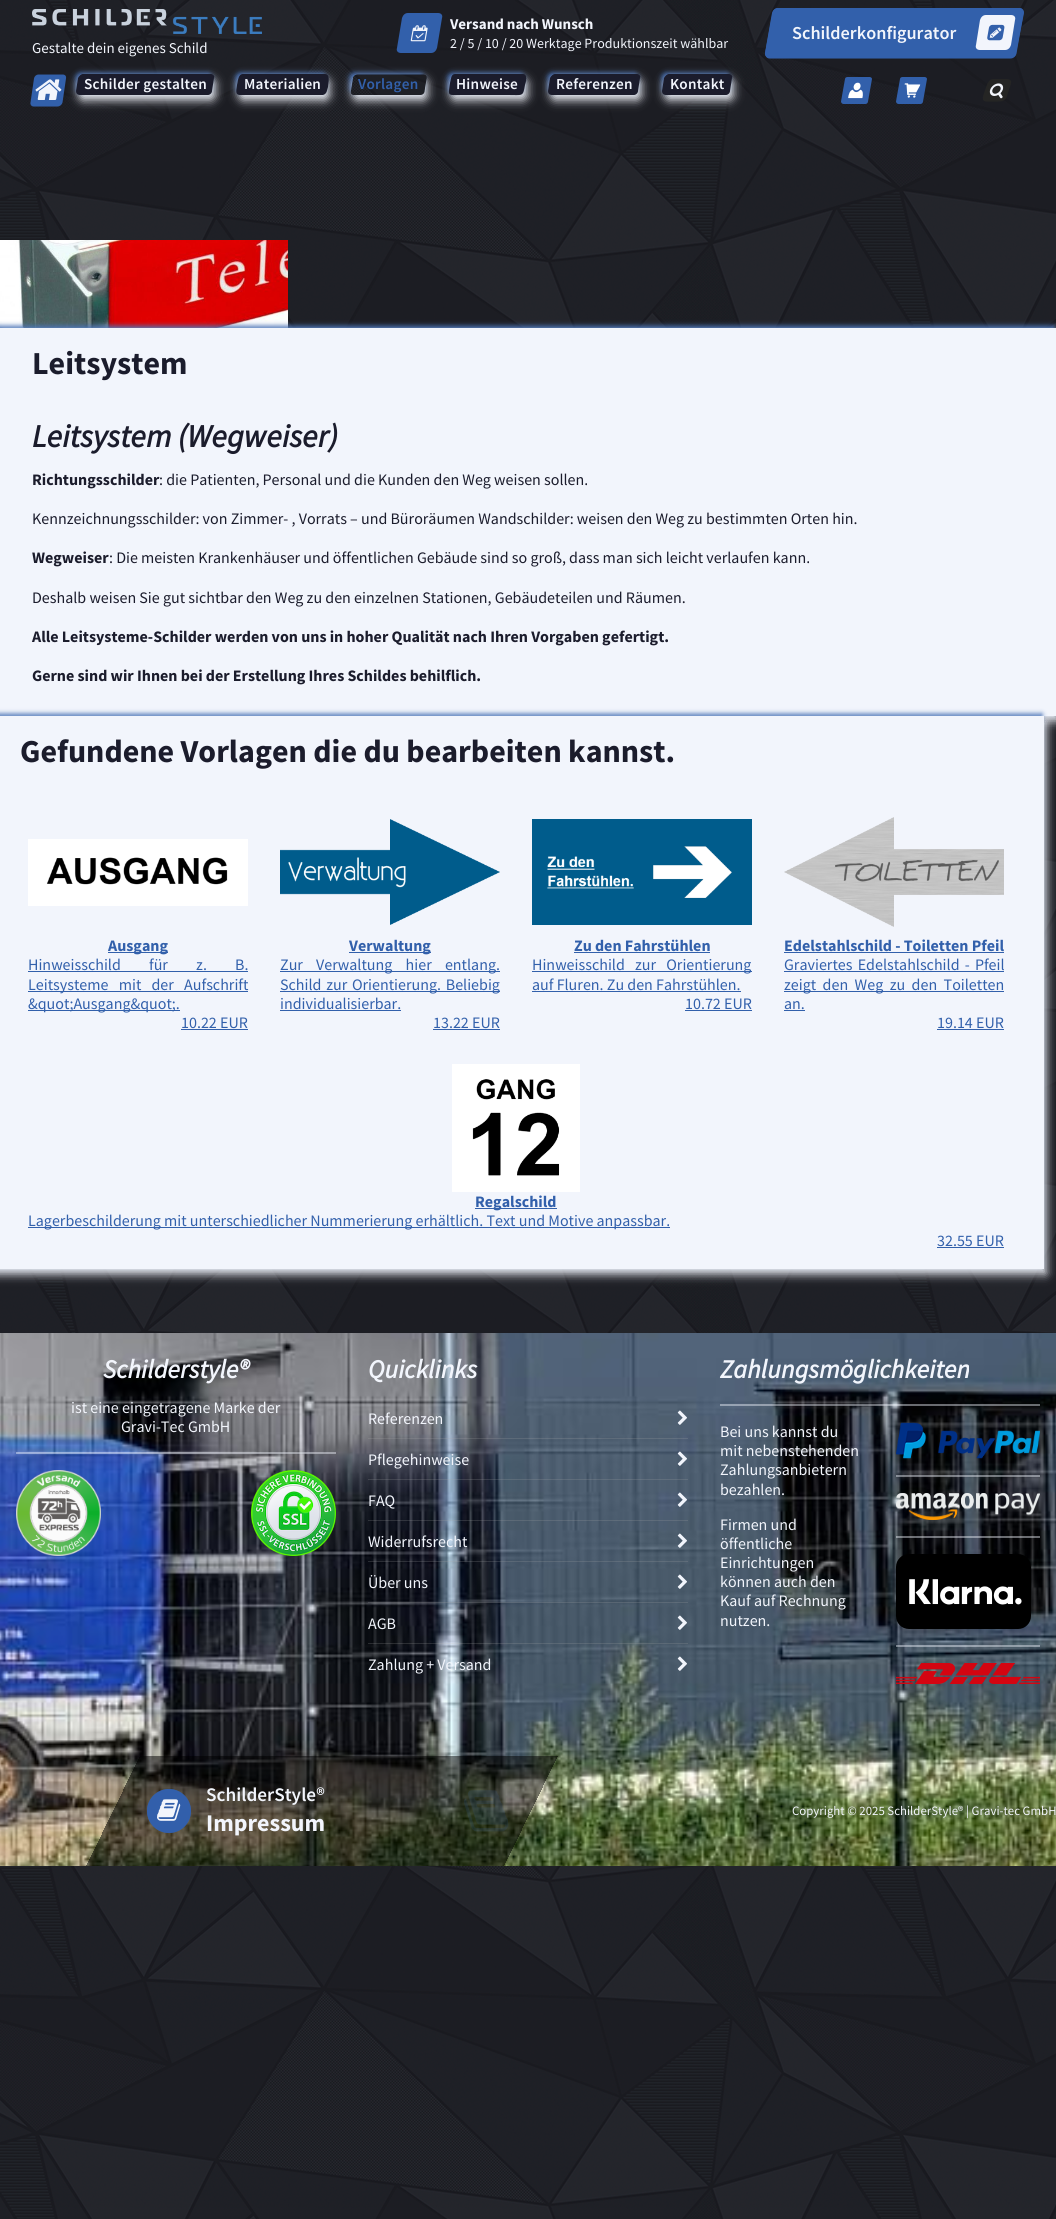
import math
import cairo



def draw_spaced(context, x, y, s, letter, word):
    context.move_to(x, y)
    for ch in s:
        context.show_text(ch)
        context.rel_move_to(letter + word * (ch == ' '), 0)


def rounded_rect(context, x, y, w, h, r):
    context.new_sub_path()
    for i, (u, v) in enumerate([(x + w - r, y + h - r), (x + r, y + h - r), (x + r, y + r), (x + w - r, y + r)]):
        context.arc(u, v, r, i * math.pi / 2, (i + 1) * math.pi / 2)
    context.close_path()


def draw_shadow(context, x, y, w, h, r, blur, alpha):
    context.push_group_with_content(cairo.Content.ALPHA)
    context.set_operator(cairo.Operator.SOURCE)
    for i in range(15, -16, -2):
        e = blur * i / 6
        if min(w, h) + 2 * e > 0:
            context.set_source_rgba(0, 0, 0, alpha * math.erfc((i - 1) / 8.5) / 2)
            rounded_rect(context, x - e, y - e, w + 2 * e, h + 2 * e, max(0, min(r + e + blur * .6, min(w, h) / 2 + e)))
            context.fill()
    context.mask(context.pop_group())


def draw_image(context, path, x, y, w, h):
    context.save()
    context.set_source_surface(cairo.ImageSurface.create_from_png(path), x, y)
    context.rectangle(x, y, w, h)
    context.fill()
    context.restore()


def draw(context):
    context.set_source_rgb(1, 1, 1)
    context.paint()
    draw_image(context, "images/1.png", 0, 0, 1056, 2219)
    draw_image(context, "images/2.png", 32, 9, 230, 25)
    context.set_source_rgb(50 / 255, 96 / 255, 171 / 255)
    context.new_path()
    context.move_to(408, 13)
    context.line_to(438, 13)
    context.curve_to(441, 13, 443, 15, 442, 18)
    context.line_to(437, 48)
    context.curve_to(436, 51, 434, 53, 431, 53)
    context.line_to(401, 53)
    context.curve_to(398, 53, 396, 51, 397, 48)
    context.line_to(402, 18)
    context.curve_to(403, 15, 405, 13, 408, 13)
    context.close_path()
    context.fill()
    draw_image(context, "images/3.png", 410, 25, 18, 17)
    context.new_path()
    context.move_to(778, 8)
    context.line_to(1019, 8)
    context.curve_to(1022, 8, 1024, 10, 1024, 13)
    context.line_to(1016, 53)
    context.curve_to(1016, 56, 1013, 58, 1011, 58)
    context.line_to(769, 58)
    context.curve_to(767, 58, 765, 56, 765, 53)
    context.line_to(772, 13)
    context.curve_to(773, 10, 775, 8, 778, 8)
    context.close_path()
    context.fill()
    context.new_path()
    context.move_to(778, 9)
    context.line_to(1019.5, 9)
    context.curve_to(1021.5, 9, 1023, 11, 1022.5, 13)
    context.line_to(1015.5, 53.5)
    context.curve_to(1015, 55.5, 1013, 57.5, 1010.5, 57.5)
    context.line_to(769.5, 57.5)
    context.curve_to(767.5, 57.5, 766, 55.5, 766, 53.5)
    context.line_to(773.5, 13)
    context.curve_to(773.5, 11, 776, 9, 778, 9)
    context.close_path()
    context.stroke()
    context.set_source_rgb(242 / 255, 245 / 255, 252 / 255)
    context.new_path()
    context.move_to(986, 15)
    context.line_to(1011, 15)
    context.curve_to(1014, 15, 1016, 17, 1015, 20)
    context.line_to(1011, 45)
    context.curve_to(1010, 48, 1008, 50, 1005, 50)
    context.line_to(980, 50)
    context.curve_to(977, 50, 975, 48, 976, 45)
    context.line_to(980, 20)
    context.curve_to(981, 17, 983, 15, 986, 15)
    context.close_path()
    context.fill()
    draw_image(context, "images/4.png", 987, 24, 18, 17)
    context.set_source_rgb(50 / 255, 96 / 255, 171 / 255)
    context.new_path()
    context.move_to(38.5, 74.5)
    context.line_to(62.5, 74.5)
    context.curve_to(65, 74.5, 66.5, 76, 66, 78.5)
    context.line_to(62.5, 102.5)
    context.curve_to(62, 104.5, 60, 106.5, 57.5, 106.5)
    context.line_to(33.5, 106.5)
    context.curve_to(31.5, 106.5, 30, 104.5, 30.5, 102.5)
    context.line_to(34, 78.5)
    context.curve_to(34.5, 76, 36.5, 74.5, 38.5, 74.5)
    context.close_path()
    context.fill()
    draw_image(context, "images/5.png", 35, 79, 27, 21)
    context.set_source_rgb(50 / 255, 96 / 255, 171 / 255)
    draw_shadow(context, 76, 73, 136, 20, 4, 2.5, 1)
    context.set_source_rgb(242 / 255, 245 / 255, 252 / 255)
    draw_shadow(context, 79, 79, 136, 21, 4, 5, 1)
    context.set_source_rgb(27 / 255, 28 / 255, 44 / 255)
    context.new_path()
    context.move_to(83, 74)
    context.line_to(211, 74)
    context.curve_to(213, 74, 215, 76, 214, 78)
    context.line_to(212, 91)
    context.curve_to(212, 93, 210, 95, 208, 95)
    context.line_to(80, 95)
    context.curve_to(77, 95, 76, 93, 76, 91)
    context.line_to(78, 78)
    context.curve_to(79, 76, 81, 74, 83, 74)
    context.close_path()
    context.fill()
    context.set_source_rgb(50 / 255, 96 / 255, 171 / 255)
    draw_shadow(context, 236, 73, 90, 20, 4, 2.5, 1)
    context.set_source_rgb(242 / 255, 245 / 255, 252 / 255)
    draw_shadow(context, 239, 79, 90, 21, 4, 5, 1)
    context.set_source_rgb(27 / 255, 28 / 255, 44 / 255)
    context.new_path()
    context.move_to(243, 74)
    context.line_to(325, 74)
    context.curve_to(331, 74, 328, 84, 328, 87)
    context.curve_to(327, 90, 327, 94, 323, 95)
    context.line_to(240, 95)
    context.curve_to(234, 95, 237, 88, 237, 85)
    context.curve_to(238, 81, 238, 74, 243, 74)
    context.close_path()
    context.fill()
    context.save()
    context.set_fill_rule(cairo.FillRule.EVEN_ODD)
    context.new_path()
    context.move_to(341, 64)
    context.line_to(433, 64)
    context.line_to(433, 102)
    context.line_to(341, 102)
    context.close_path()
    context.move_to(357.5, 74.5)
    context.line_to(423.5, 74.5)
    context.curve_to(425.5, 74.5, 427, 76, 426.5, 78.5)
    context.line_to(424.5, 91)
    context.curve_to(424.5, 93.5, 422.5, 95, 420, 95)
    context.line_to(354, 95)
    context.curve_to(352, 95, 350.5, 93.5, 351, 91)
    context.line_to(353, 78.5)
    context.curve_to(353, 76, 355.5, 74.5, 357.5, 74.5)
    context.close_path()
    context.clip()
    context.set_source_rgb(50 / 255, 96 / 255, 171 / 255)
    draw_shadow(context, 350, 73, 74, 20, 4, 2.5, 1)
    context.restore()
    context.save()
    context.set_fill_rule(cairo.FillRule.EVEN_ODD)
    context.new_path()
    context.move_to(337, 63)
    context.line_to(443, 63)
    context.line_to(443, 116)
    context.line_to(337, 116)
    context.close_path()
    context.move_to(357.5, 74.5)
    context.line_to(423.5, 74.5)
    context.curve_to(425.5, 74.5, 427, 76, 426.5, 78.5)
    context.line_to(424.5, 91)
    context.curve_to(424.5, 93.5, 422.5, 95, 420, 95)
    context.line_to(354, 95)
    context.curve_to(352, 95, 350.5, 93.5, 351, 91)
    context.line_to(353, 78.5)
    context.curve_to(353, 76, 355.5, 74.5, 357.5, 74.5)
    context.close_path()
    context.clip()
    context.set_source_rgb(242 / 255, 245 / 255, 252 / 255)
    draw_shadow(context, 353, 79, 74, 21, 4, 5, 1)
    context.restore()
    context.set_source_rgb(50 / 255, 96 / 255, 171 / 255)
    draw_shadow(context, 448, 73, 76, 20, 4, 2.5, 1)
    context.set_source_rgb(242 / 255, 245 / 255, 252 / 255)
    draw_shadow(context, 451, 79, 76, 21, 4, 5, 1)
    context.set_source_rgb(27 / 255, 28 / 255, 44 / 255)
    context.new_path()
    context.move_to(455, 74)
    context.line_to(523, 74)
    context.curve_to(528, 74, 526, 82, 525, 85)
    context.curve_to(523, 97, 523, 95, 508, 95)
    context.line_to(463, 95)
    context.curve_to(447, 95, 448, 97, 450, 83)
    context.curve_to(451, 79, 451, 74, 455, 74)
    context.close_path()
    context.fill()
    context.set_source_rgb(50 / 255, 96 / 255, 171 / 255)
    draw_shadow(context, 548, 73, 90, 20, 4, 2.5, 1)
    context.set_source_rgb(242 / 255, 245 / 255, 252 / 255)
    draw_shadow(context, 551, 79, 90, 21, 4, 5, 1)
    context.set_source_rgb(27 / 255, 28 / 255, 44 / 255)
    context.new_path()
    context.move_to(555, 74)
    context.line_to(637, 74)
    context.curve_to(639, 74, 641, 76, 640, 78)
    context.line_to(638, 91)
    context.curve_to(638, 93, 636, 95, 634, 95)
    context.line_to(552, 95)
    context.curve_to(549, 95, 548, 93, 548, 91)
    context.line_to(550, 78)
    context.curve_to(551, 76, 553, 74, 555, 74)
    context.close_path()
    context.fill()
    context.set_source_rgb(50 / 255, 96 / 255, 171 / 255)
    draw_shadow(context, 662, 73, 68, 20, 4, 2.5, 1)
    context.set_source_rgb(242 / 255, 245 / 255, 252 / 255)
    draw_shadow(context, 665, 79, 68, 21, 4, 5, 1)
    context.set_source_rgb(27 / 255, 28 / 255, 44 / 255)
    context.new_path()
    context.move_to(669, 74)
    context.line_to(729, 74)
    context.curve_to(731, 74, 733, 76, 732, 78)
    context.line_to(730, 91)
    context.curve_to(730, 93, 728, 95, 726, 95)
    context.line_to(666, 95)
    context.curve_to(663, 95, 662, 93, 662, 91)
    context.line_to(664, 78)
    context.curve_to(665, 76, 667, 74, 669, 74)
    context.close_path()
    context.fill()
    context.set_source_rgb(50 / 255, 96 / 255, 171 / 255)
    context.new_path()
    context.move_to(847.5, 77)
    context.line_to(869.5, 77)
    context.curve_to(871, 77, 872, 78, 872, 79)
    context.line_to(868, 101.5)
    context.curve_to(868, 102.5, 867, 104, 865.5, 104)
    context.line_to(843.5, 104)
    context.curve_to(842, 104, 841, 102.5, 841, 101.5)
    context.line_to(845, 79)
    context.curve_to(845, 78, 846, 77, 847.5, 77)
    context.close_path()
    context.fill()
    draw_image(context, "images/6.png", 848, 82, 15, 17)
    context.new_path()
    context.move_to(902.5, 77)
    context.line_to(924.5, 77)
    context.curve_to(926, 77, 927, 78, 927, 79)
    context.line_to(923, 101.5)
    context.curve_to(923, 102.5, 922, 104, 920.5, 104)
    context.line_to(898.5, 104)
    context.curve_to(897, 104, 896, 102.5, 896, 101.5)
    context.line_to(900, 79)
    context.curve_to(900, 78, 901, 77, 902.5, 77)
    context.close_path()
    context.fill()
    draw_image(context, "images/7.png", 904, 83, 17, 15)
    context.set_source_rgb(37 / 255, 37 / 255, 36 / 255)
    context.new_path()
    context.move_to(993.5, 79)
    context.line_to(1005.5, 79)
    context.curve_to(1013, 79, 1011.5, 82.5, 1009.5, 88)
    context.line_to(1006.5, 97.5)
    context.curve_to(1004, 102, 1000, 101.5, 995.5, 101.5)
    context.line_to(986.5, 101.5)
    context.curve_to(980, 101.5, 984, 93.5, 985, 90.5)
    context.curve_to(986.5, 86, 988, 79, 993.5, 79)
    context.close_path()
    context.fill()
    draw_image(context, "images/8.png", 989, 83, 15, 16)
    draw_image(context, "images/9.png", 0, 240, 288, 88)
    context.set_source_rgb(50 / 255, 96 / 255, 171 / 255)
    draw_shadow(context, -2, 326, 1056, 388, 0, 2.5, 1)
    context.set_source_rgb(242 / 255, 245 / 255, 252 / 255)
    draw_shadow(context, 2, 333, 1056, 388, 0, 5, 1)
    context.set_source_rgb(242 / 255, 245 / 255, 252 / 255)
    context.rectangle(0, 328, 1056, 388)
    context.fill()
    context.set_source_rgb(50 / 255, 96 / 255, 171 / 255)
    draw_shadow(context, -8, 714, 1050, 553, 0, 2.5, 1)
    context.set_source_rgb(242 / 255, 245 / 255, 252 / 255)
    draw_shadow(context, -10, 721, 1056, 553, 0, 5, 1)
    context.set_source_rgb(242 / 255, 245 / 255, 252 / 255)
    context.rectangle(0, 716, 1044, 553)
    context.fill()
    draw_image(context, "images/10.png", 28, 839, 220, 67)
    context.set_source_rgb(50 / 255, 96 / 255, 171 / 255)
    context.rectangle(108, 952, 60, 1)
    context.fill()
    context.rectangle(28, 971, 220, 1)
    context.fill()
    context.rectangle(28, 991, 220, 1)
    context.fill()
    context.rectangle(28, 1010, 152, 1)
    context.fill()
    context.rectangle(181, 1029, 67, 1)
    context.fill()
    draw_image(context, "images/11.png", 280, 819, 220, 106)
    context.rectangle(349, 952, 82, 1)
    context.fill()
    context.rectangle(280, 971, 220, 1)
    context.fill()
    context.rectangle(280, 991, 220, 1)
    context.fill()
    context.rectangle(280, 1010, 121, 1)
    context.fill()
    context.rectangle(433, 1029, 67, 1)
    context.fill()
    draw_image(context, "images/12.png", 532, 819, 220, 106)
    context.rectangle(574, 952, 136, 1)
    context.fill()
    context.rectangle(532, 971, 220, 1)
    context.fill()
    context.rectangle(532, 991, 209, 1)
    context.fill()
    context.rectangle(685, 1010, 67, 1)
    context.fill()
    draw_image(context, "images/13.png", 784, 817, 220, 110)
    context.rectangle(784, 952, 220, 1)
    context.fill()
    context.rectangle(784, 971, 220, 1)
    context.fill()
    context.rectangle(784, 991, 220, 1)
    context.fill()
    context.rectangle(784, 1010, 21, 1)
    context.fill()
    context.rectangle(937, 1029, 67, 1)
    context.fill()
    draw_image(context, "images/14.png", 452, 1064, 128, 128)
    context.rectangle(475, 1208, 82, 1)
    context.fill()
    context.rectangle(28, 1227, 642, 1)
    context.fill()
    context.rectangle(937, 1247, 67, 1)
    context.fill()
    draw_image(context, "images/15.png", 0, 1333, 1056, 533)
    context.set_source_rgba(242 / 255, 245 / 255, 252 / 255, 0.25)
    context.rectangle(16, 1452, 320, 2)
    context.fill()
    context.rectangle(16, 1452, 320, 2)
    context.fill()
    draw_image(context, "images/16.png", 16, 1470, 85, 86)
    draw_image(context, "images/17.png", 251, 1470, 85, 86)
    context.set_source_rgba(171 / 255, 171 / 255, 171 / 255, 0.2)
    context.rectangle(368, 1438, 320, 1)
    context.fill()
    draw_image(context, "images/18.png", 677, 1410, 10, 15)
    context.rectangle(368, 1479, 320, 1)
    context.fill()
    draw_image(context, "images/19.png", 677, 1451, 10, 15)
    context.rectangle(368, 1520, 320, 1)
    context.fill()
    draw_image(context, "images/20.png", 677, 1492, 10, 15)
    context.rectangle(368, 1561, 320, 1)
    context.fill()
    draw_image(context, "images/21.png", 677, 1533, 10, 15)
    context.rectangle(368, 1602, 320, 1)
    context.fill()
    draw_image(context, "images/22.png", 677, 1574, 10, 15)
    context.rectangle(368, 1643, 320, 1)
    context.fill()
    draw_image(context, "images/23.png", 677, 1615, 10, 15)
    draw_image(context, "images/24.png", 677, 1656, 10, 15)
    context.set_source_rgba(242 / 255, 245 / 255, 252 / 255, 0.25)
    context.rectangle(720, 1404, 320, 2)
    context.fill()
    context.rectangle(720, 1404, 320, 2)
    context.fill()
    draw_image(context, "images/25.png", 896, 1422, 144, 37)
    context.rectangle(896, 1475, 144, 2)
    context.fill()
    context.rectangle(896, 1475, 144, 2)
    context.fill()
    draw_image(context, "images/26.png", 896, 1493, 144, 27)
    context.rectangle(896, 1536, 144, 2)
    context.fill()
    context.rectangle(896, 1536, 144, 2)
    context.fill()
    draw_image(context, "images/27.png", 896, 1554, 135, 75)
    context.rectangle(896, 1645, 144, 2)
    context.fill()
    context.rectangle(896, 1645, 144, 2)
    context.fill()
    draw_image(context, "images/28.png", 896, 1663, 144, 21)
    context.set_source_rgb(50 / 255, 96 / 255, 171 / 255)
    context.arc(169, 1811, 22, 0, 2 * math.pi)
    context.fill()
    context.set_source_rgba(50 / 255, 96 / 255, 171 / 255, 0.3)
    context.arc(169, 1811, 22, 0, 2 * math.pi)
    context.fill()
    context.arc(169, 1811, 22, 0, 2 * math.pi)
    context.fill()
    draw_image(context, "images/29.png", 157, 1799, 24, 22)
    draw_image(context, "images/30.png", 464, 1790, 45, 42)
    context.select_font_face("Source Sans Pro")
    context.set_font_size(15)
    context.set_source_rgb(242 / 255, 245 / 255, 252 / 255)
    context.move_to(32, 53)
    context.show_text("Gestalte dein eigenes Schild")
    context.select_font_face("Source Sans Pro", cairo.FontSlant.NORMAL, cairo.FontWeight.BOLD)
    context.move_to(450, 29)
    context.show_text("Versand nach Wunsch")
    context.select_font_face("Source Sans Pro")
    context.set_font_size(14)
    context.move_to(450, 48)
    context.show_text("2 / 5 / 10 / 20 Werktage Produktionszeit wählbar")
    context.select_font_face("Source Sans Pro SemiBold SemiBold")
    context.set_font_size(18.25)
    context.move_to(792, 39)
    context.show_text("Schilderkonfigurator")
    context.set_font_size(15.25)
    draw_spaced(context, 84, 89, "Schilder gestalten", 0.25, 0)
    draw_spaced(context, 244, 89, "Materialien", 0.25, 0)
    context.set_source_rgb(50 / 255, 96 / 255, 171 / 255)
    draw_spaced(context, 358, 89, "Vorlagen", 0.25, 0)
    context.set_source_rgb(242 / 255, 245 / 255, 252 / 255)
    draw_spaced(context, 456, 89, "Hinweise", 0.25, 0)
    draw_spaced(context, 556, 89, "Referenzen", 0.25, 0)
    draw_spaced(context, 670, 89, "Kontakt", 0.25, 0)
    context.select_font_face("Source Sans Pro", cairo.FontSlant.NORMAL, cairo.FontWeight.BOLD)
    context.set_font_size(32)
    context.set_source_rgb(27 / 255, 28 / 255, 44 / 255)
    context.move_to(32, 374)
    context.show_text("Leitsystem")
    context.select_font_face("Source Sans Pro", cairo.FontSlant.ITALIC, cairo.FontWeight.BOLD)
    context.move_to(32, 447)
    context.show_text("Leitsystem (Wegweiser)")
    context.select_font_face("Source Sans Pro", cairo.FontSlant.NORMAL, cairo.FontWeight.BOLD)
    context.set_font_size(16)
    context.move_to(32, 485)
    context.show_text("Richtungsschilder")
    context.select_font_face("Source Sans Pro")
    context.move_to(159, 485)
    context.show_text(": die Patienten, Personal und die Kunden den Weg weisen sollen.")
    context.move_to(32, 524)
    context.show_text("Kennzeichnungsschilder: von Zimmer- , Vorrats – und Büroräumen Wandschilder: weisen den Weg zu bestimmten Orten hin.")
    context.select_font_face("Source Sans Pro", cairo.FontSlant.NORMAL, cairo.FontWeight.BOLD)
    context.move_to(32, 563)
    context.show_text("Wegweiser")
    context.select_font_face("Source Sans Pro")
    context.move_to(109, 563)
    context.show_text(": Die meisten Krankenhäuser und öffentlichen Gebäude sind so groß, dass man sich leicht verlaufen kann.")
    context.move_to(32, 603)
    context.show_text("Deshalb weisen Sie gut sichtbar den Weg zu den einzelnen Stationen, Gebäudeteilen und Räumen.")
    context.select_font_face("Source Sans Pro", cairo.FontSlant.NORMAL, cairo.FontWeight.BOLD)
    context.move_to(32, 642)
    context.show_text("Alle Leitsysteme-Schilder werden von uns in hoher Qualität nach Ihren Vorgaben gefertigt.")
    context.move_to(32, 681)
    context.show_text("Gerne sind wir Ihnen bei der Erstellung Ihres Schildes behilflich.")
    context.set_font_size(32)
    context.move_to(20, 762)
    context.show_text("Gefundene Vorlagen die du bearbeiten kannst.")
    context.set_font_size(16)
    context.set_source_rgb(50 / 255, 96 / 255, 171 / 255)
    context.move_to(108, 951)
    context.show_text("Ausgang")
    context.select_font_face("Source Sans Pro")
    draw_spaced(context, 28, 970, "Hinweisschild für z. B.", 0, 25)
    draw_spaced(context, 28, 990, "Leitsysteme mit der Aufschrift", 0, 7)
    context.move_to(28, 1009)
    context.show_text("&quot;Ausgang&quot;.")
    context.move_to(181, 1028)
    context.show_text("10.22 EUR")
    context.select_font_face("Source Sans Pro", cairo.FontSlant.NORMAL, cairo.FontWeight.BOLD)
    context.move_to(349, 951)
    context.show_text("Verwaltung")
    context.select_font_face("Source Sans Pro")
    draw_spaced(context, 280, 970, "Zur Verwaltung hier entlang.", 0, 10)
    draw_spaced(context, 280, 990, "Schild zur Orientierung. Beliebig", 0, 1.5)
    context.move_to(280, 1009)
    context.show_text("individualisierbar.")
    context.move_to(433, 1028)
    context.show_text("13.22 EUR")
    context.select_font_face("Source Sans Pro", cairo.FontSlant.NORMAL, cairo.FontWeight.BOLD)
    context.move_to(574, 951)
    context.show_text("Zu den Fahrstühlen")
    context.select_font_face("Source Sans Pro")
    draw_spaced(context, 532, 970, "Hinweisschild zur Orientierung", 0, 7)
    context.move_to(532, 990)
    context.show_text("auf Fluren. Zu den Fahrstühlen.")
    context.move_to(685, 1009)
    context.show_text("10.72 EUR")
    context.select_font_face("Source Sans Pro", cairo.FontSlant.NORMAL, cairo.FontWeight.BOLD)
    context.move_to(784, 951)
    context.show_text("Edelstahlschild - Toiletten Pfeil")
    context.select_font_face("Source Sans Pro")
    draw_spaced(context, 784, 970, "Graviertes Edelstahlschild - Pfeil", 0, 2)
    draw_spaced(context, 784, 990, "zeigt den Weg zu den Toiletten", 0, 3.25)
    context.move_to(784, 1009)
    context.show_text("an.")
    context.move_to(937, 1028)
    context.show_text("19.14 EUR")
    context.select_font_face("Source Sans Pro", cairo.FontSlant.NORMAL, cairo.FontWeight.BOLD)
    context.move_to(475, 1207)
    context.show_text("Regalschild")
    context.select_font_face("Source Sans Pro")
    context.move_to(28, 1226)
    context.show_text("Lagerbeschilderung mit unterschiedlicher Nummerierung erhältlich. Text und Motive anpassbar.")
    context.move_to(937, 1246)
    context.show_text("32.55 EUR")
    context.select_font_face("Source Sans Pro", cairo.FontSlant.ITALIC, cairo.FontWeight.BOLD)
    context.set_font_size(26)
    context.set_source_rgb(242 / 255, 245 / 255, 252 / 255)
    context.move_to(103, 1378)
    context.show_text("Schilderstyle®")
    context.select_font_face("Source Sans Pro")
    context.set_font_size(16)
    context.move_to(71, 1413)
    context.show_text("ist eine eingetragene Marke der")
    context.move_to(121, 1432)
    context.show_text("Gravi-Tec GmbH")
    context.select_font_face("Source Sans Pro", cairo.FontSlant.ITALIC, cairo.FontWeight.BOLD)
    context.set_font_size(26)
    context.move_to(368, 1378)
    context.show_text("Quicklinks")
    context.select_font_face("Source Sans Pro")
    context.set_font_size(16)
    context.move_to(368, 1424)
    context.show_text("Referenzen")
    context.move_to(368, 1465)
    context.show_text("Pflegehinweise")
    context.move_to(368, 1506)
    context.show_text("FAQ")
    context.move_to(368, 1547)
    context.show_text("Widerrufsrecht")
    context.move_to(368, 1588)
    context.show_text("Über uns")
    context.move_to(368, 1629)
    context.show_text("AGB")
    context.move_to(368, 1670)
    context.show_text("Zahlung + Versand")
    context.select_font_face("Source Sans Pro", cairo.FontSlant.ITALIC, cairo.FontWeight.BOLD)
    context.set_font_size(26)
    context.move_to(720, 1378)
    context.show_text("Zahlungsmöglichkeiten")
    context.select_font_face("Source Sans Pro")
    context.set_font_size(16)
    context.move_to(720, 1437)
    context.show_text("Bei uns kannst du")
    context.move_to(720, 1456)
    context.show_text("mit nebenstehenden")
    context.move_to(720, 1475)
    context.show_text("Zahlungsanbietern")
    context.move_to(720, 1495)
    context.show_text("bezahlen.")
    context.move_to(720, 1530)
    context.show_text("Firmen und")
    context.move_to(720, 1549)
    context.show_text("öffentliche")
    context.move_to(720, 1568)
    context.show_text("Einrichtungen")
    context.move_to(720, 1587)
    context.show_text("können auch den")
    context.move_to(720, 1606)
    context.show_text("Kauf auf Rechnung")
    context.move_to(720, 1626)
    context.show_text("nutzen.")
    context.select_font_face("Source Sans Pro SemiBold SemiBold")
    context.set_font_size(19.25)
    context.move_to(206, 1801)
    context.show_text("SchilderStyle®")
    context.select_font_face("Source Sans Pro", cairo.FontSlant.NORMAL, cairo.FontWeight.BOLD)
    context.set_font_size(24)
    context.move_to(206, 1831)
    context.show_text("Impressum")
    context.select_font_face("Source Sans Pro")
    context.set_font_size(12.8)
    context.move_to(792, 1815)
    context.show_text("Copyright © 2025 SchilderStyle® | Gravi-tec GmbH")


surface = cairo.ImageSurface(cairo.Format.RGB24, 1056, 2219)
context = cairo.Context(surface)
options = cairo.FontOptions()
options.set_hint_metrics(cairo.HintMetrics.OFF)
options.set_hint_style(cairo.HintStyle.NONE)
context.set_font_options(options)
context.set_miter_limit(4)
draw(context)
surface.write_to_png("out.png")
